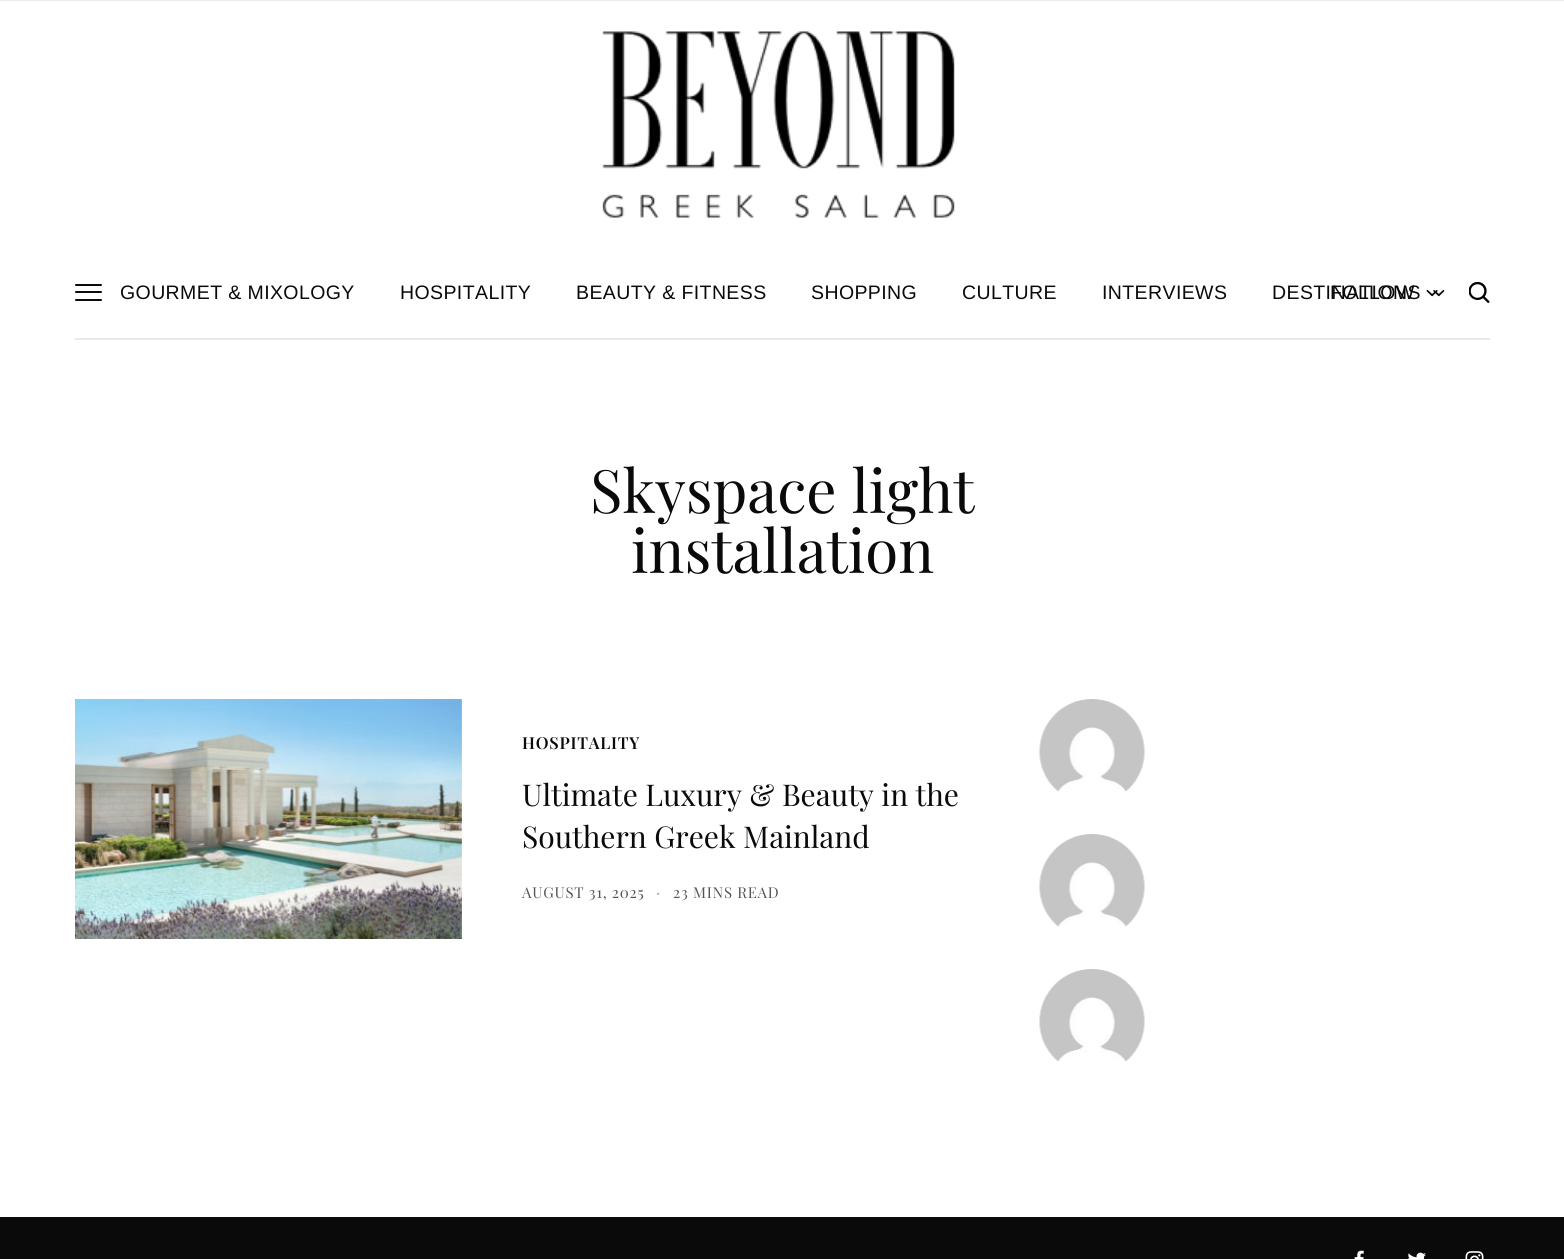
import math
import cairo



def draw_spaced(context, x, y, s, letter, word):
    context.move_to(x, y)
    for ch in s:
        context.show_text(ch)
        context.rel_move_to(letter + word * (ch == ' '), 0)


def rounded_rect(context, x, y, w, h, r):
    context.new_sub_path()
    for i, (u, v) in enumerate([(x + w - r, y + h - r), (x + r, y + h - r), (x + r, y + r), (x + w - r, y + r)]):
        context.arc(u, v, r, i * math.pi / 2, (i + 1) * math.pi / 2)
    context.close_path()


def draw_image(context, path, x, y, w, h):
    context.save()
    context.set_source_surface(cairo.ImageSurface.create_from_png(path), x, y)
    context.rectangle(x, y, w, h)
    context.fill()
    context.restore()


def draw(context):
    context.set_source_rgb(1, 1, 1)
    context.paint()
    context.set_source_rgb(235 / 255, 235 / 255, 235 / 255)
    context.rectangle(0, 0, 1564, 1)
    context.fill()
    draw_image(context, "images/1.png", 602, 31, 353, 187)
    context.set_source_rgb(233 / 255, 233 / 255, 233 / 255)
    context.rectangle(75, 338, 1415, 2)
    context.fill()
    context.set_source_rgb(10 / 255, 10 / 255, 10 / 255)
    rounded_rect(context, 75, 284, 27, 2, 1)
    context.fill()
    rounded_rect(context, 75, 291, 27, 2, 1)
    context.fill()
    rounded_rect(context, 75, 299, 27, 2, 1)
    context.fill()
    draw_image(context, "images/2.png", 1433, 290, 12, 7)
    draw_image(context, "images/3.png", 1426, 290, 12, 7)
    draw_image(context, "images/4.png", 1469, 282, 21, 21)
    draw_image(context, "images/5.png", 75, 699, 387, 240)
    draw_image(context, "images/6.png", 1039, 699, 106, 93)
    draw_image(context, "images/6.png", 1039, 834, 106, 93)
    draw_image(context, "images/6.png", 1039, 969, 106, 93)
    context.rectangle(0, 1217, 1564, 42)
    context.fill()
    draw_image(context, "images/7.png", 1354, 1250, 10, 9)
    draw_image(context, "images/8.png", 1408, 1252, 18, 7)
    draw_image(context, "images/9.png", 1465, 1251, 19, 8)
    context.select_font_face("Liberation Sans")
    context.set_font_size(19.5)
    draw_spaced(context, 120, 299, "GOURMET & MIXOLOGY", 0.4, 0)
    draw_spaced(context, 400, 299, "HOSPITALITY", 0.4, 0)
    draw_spaced(context, 576, 299, "BEAUTY & FITNESS", 0.4, 0)
    draw_spaced(context, 811, 299, "SHOPPING", 0.4, 0)
    draw_spaced(context, 962, 299, "CULTURE", 0.4, 0)
    draw_spaced(context, 1102, 299, "INTERVIEWS", 0.4, 0)
    draw_spaced(context, 1272, 299, "DESTINATIONS", 0.4, 0)
    draw_spaced(context, 1330, 299, "FOLLOW", 0.4, 0)
    context.select_font_face("Playfair Display")
    context.set_font_size(60)
    context.move_to(590, 513)
    context.show_text("Skyspace light")
    context.move_to(631, 573)
    context.show_text("installation")
    context.select_font_face("Playfair Display SemiBold")
    context.set_font_size(16.5)
    draw_spaced(context, 522, 749, "HOSPITALITY", 0.75, 0)
    context.select_font_face("Playfair Display")
    context.set_font_size(30)
    context.move_to(522, 806)
    context.show_text("Ultimate Luxury & Beauty in the")
    context.move_to(522, 848)
    context.show_text("Southern Greek Mainland")
    context.set_font_size(15)
    context.set_source_rgb(84 / 255, 84 / 255, 84 / 255)
    draw_spaced(context, 522, 898, "AUGUST 31, 2025", 0.75, 0)
    context.select_font_face("Playfair Display SemiBold")
    context.set_source_rgb(181 / 255, 181 / 255, 181 / 255)
    draw_spaced(context, 656, 898, "·", 0.75, 0)
    context.select_font_face("Playfair Display")
    context.set_source_rgb(84 / 255, 84 / 255, 84 / 255)
    draw_spaced(context, 673, 898, "23 MINS READ", 0.75, 0)


surface = cairo.ImageSurface(cairo.Format.RGB24, 1564, 1259)
context = cairo.Context(surface)
options = cairo.FontOptions()
options.set_hint_metrics(cairo.HintMetrics.OFF)
options.set_hint_style(cairo.HintStyle.NONE)
context.set_font_options(options)
context.set_miter_limit(4)
draw(context)
surface.write_to_png("out.png")
